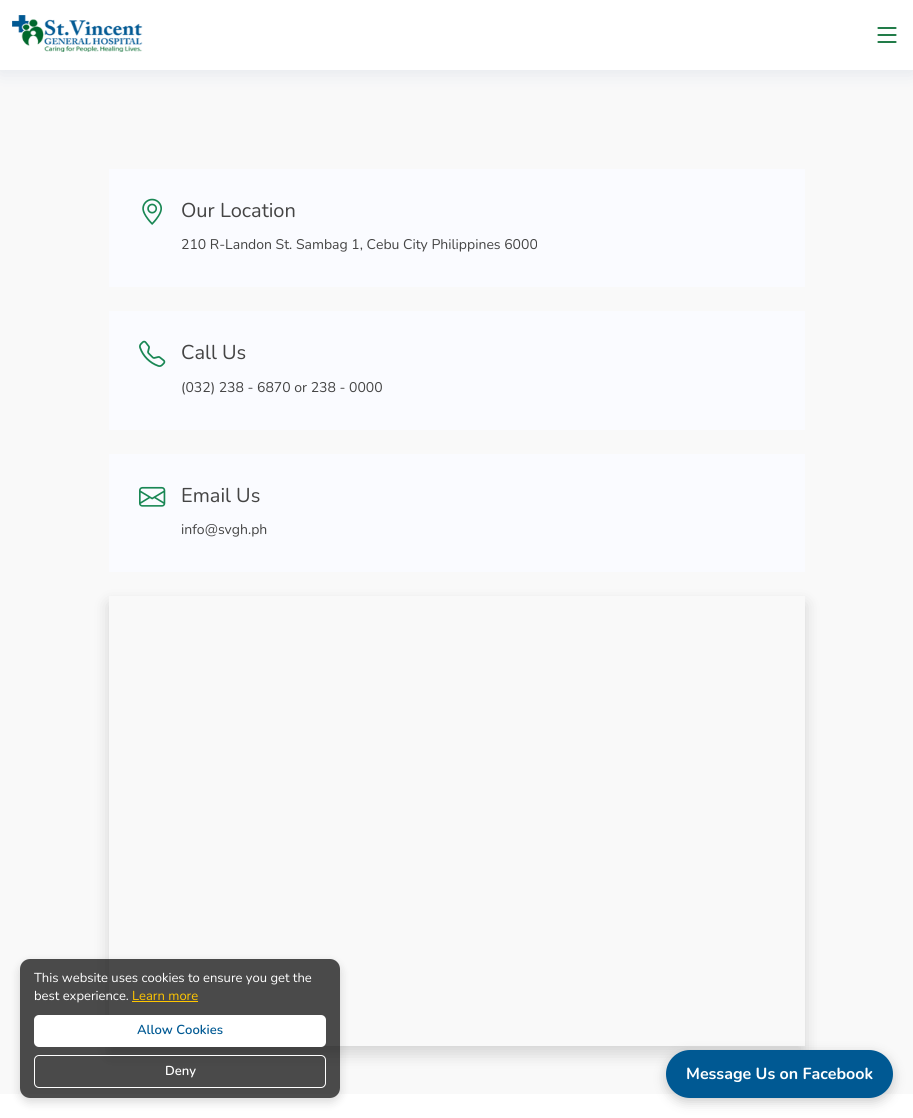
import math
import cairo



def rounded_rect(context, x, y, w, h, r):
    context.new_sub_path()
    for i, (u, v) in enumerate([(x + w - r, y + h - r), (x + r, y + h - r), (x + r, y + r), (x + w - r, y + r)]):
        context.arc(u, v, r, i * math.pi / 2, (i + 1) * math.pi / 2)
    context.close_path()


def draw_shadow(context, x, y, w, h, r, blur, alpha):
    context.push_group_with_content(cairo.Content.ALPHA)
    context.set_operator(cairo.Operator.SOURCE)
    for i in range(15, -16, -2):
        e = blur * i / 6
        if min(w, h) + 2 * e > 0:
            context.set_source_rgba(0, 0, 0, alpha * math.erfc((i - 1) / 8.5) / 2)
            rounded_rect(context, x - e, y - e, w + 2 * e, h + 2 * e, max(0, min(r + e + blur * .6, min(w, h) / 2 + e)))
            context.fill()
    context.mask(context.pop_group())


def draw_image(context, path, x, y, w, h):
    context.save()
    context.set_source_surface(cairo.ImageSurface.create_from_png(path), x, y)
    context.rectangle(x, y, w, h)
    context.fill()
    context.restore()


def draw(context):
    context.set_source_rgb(249 / 255, 249 / 255, 249 / 255)
    context.paint()
    context.set_source_rgb(1 / 255, 41 / 255, 112 / 255)
    draw_shadow(context, 0, 2, 913, 70, 0, 10, 0.1)
    context.set_source_rgb(1, 1, 1)
    context.rectangle(0, 0, 913, 70)
    context.fill()
    draw_image(context, "images/1.png", 12, 15, 131, 37)
    draw_image(context, "images/2.png", 877, 27, 20, 16)
    context.set_source_rgb(250 / 255, 251 / 255, 1)
    context.rectangle(109, 169, 696, 118)
    context.fill()
    draw_image(context, "images/3.png", 142, 198, 20, 27)
    context.rectangle(109, 311, 696, 119)
    context.fill()
    draw_image(context, "images/4.png", 139, 340, 27, 27)
    context.rectangle(109, 454, 696, 118)
    context.fill()
    draw_image(context, "images/5.png", 139, 486, 27, 21)
    context.save()
    context.set_fill_rule(cairo.FillRule.EVEN_ODD)
    context.new_path()
    context.move_to(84, 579)
    context.line_to(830, 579)
    context.line_to(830, 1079)
    context.line_to(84, 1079)
    context.close_path()
    context.move_to(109, 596)
    context.line_to(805, 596)
    context.line_to(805, 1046)
    context.line_to(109, 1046)
    context.close_path()
    context.clip()
    context.set_source_rgb(0, 0, 0)
    draw_shadow(context, 109, 604, 696, 450, 0, 8, 0.15)
    context.restore()
    context.set_source_rgb(1, 1, 1)
    context.rectangle(0, 1094, 913, 24)
    context.fill()
    context.save()
    context.set_fill_rule(cairo.FillRule.EVEN_ODD)
    context.new_path()
    context.move_to(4, 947)
    context.line_to(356, 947)
    context.line_to(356, 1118)
    context.line_to(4, 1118)
    context.close_path()
    context.move_to(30, 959)
    context.line_to(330, 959)
    context.curve_to(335.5, 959, 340, 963.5, 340, 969)
    context.line_to(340, 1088)
    context.curve_to(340, 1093.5, 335.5, 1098, 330, 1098)
    context.line_to(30, 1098)
    context.curve_to(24.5, 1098, 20, 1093.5, 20, 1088)
    context.line_to(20, 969)
    context.curve_to(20, 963.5, 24.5, 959, 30, 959)
    context.close_path()
    context.clip()
    context.set_source_rgb(0, 0, 0)
    draw_shadow(context, 20, 963, 320, 139, 10, 5, 0.15)
    context.restore()
    context.set_source_rgba(0, 0, 0, 0.7)
    rounded_rect(context, 20, 959, 320, 139, 10)
    context.fill()
    context.set_source_rgb(1, 198 / 255, 0)
    context.rectangle(132, 1001, 66, 1)
    context.fill()
    context.set_source_rgb(1, 1, 1)
    rounded_rect(context, 34, 1015, 292, 32, 5)
    context.fill()
    rounded_rect(context, 34.5, 1055.5, 291, 32, 4.5)
    context.set_line_width(1)
    context.stroke()
    context.set_source_rgb(0, 0, 0)
    draw_shadow(context, 666, 1054, 227, 48, 24, 6, 0.2)
    context.set_source_rgb(0, 89 / 255, 147 / 255)
    rounded_rect(context, 666, 1050, 227, 48, 24)
    context.fill()
    context.select_font_face("Nunito")
    context.set_font_size(20)
    context.set_source_rgb(68 / 255, 68 / 255, 68 / 255)
    context.move_to(181, 217)
    context.show_text("Our Location")
    context.set_font_size(14)
    context.move_to(181, 249)
    context.show_text("210 R-Landon St. Sambag 1, Cebu City Philippines 6000")
    context.set_font_size(20)
    context.move_to(181, 359)
    context.show_text("Call Us")
    context.set_font_size(14)
    context.move_to(181, 392)
    context.show_text("(032) 238 - 6870 or 238 - 0000")
    context.set_font_size(20)
    context.move_to(181, 502)
    context.show_text("Email Us")
    context.set_font_size(14)
    context.move_to(181, 534)
    context.show_text("info@svgh.ph")
    context.set_font_size(13)
    context.set_source_rgb(1, 1, 1)
    context.move_to(34, 982)
    context.show_text("This website uses cookies to ensure you get the")
    context.move_to(34, 1000)
    context.show_text("best experience.")
    context.set_source_rgb(1, 198 / 255, 0)
    context.move_to(132, 1000)
    context.show_text("Learn more")
    context.select_font_face("Nunito SemiBold")
    context.set_source_rgb(0, 89 / 255, 147 / 255)
    context.move_to(137, 1034)
    context.show_text("Allow Cookies")
    context.set_source_rgb(1, 1, 1)
    context.move_to(165, 1075)
    context.show_text("Deny")
    context.select_font_face("Nunito", cairo.FontSlant.NORMAL, cairo.FontWeight.BOLD)
    context.set_font_size(16)
    context.move_to(686, 1079)
    context.show_text("Message Us on Facebook")


surface = cairo.ImageSurface(cairo.Format.RGB24, 913, 1118)
context = cairo.Context(surface)
options = cairo.FontOptions()
options.set_hint_metrics(cairo.HintMetrics.OFF)
options.set_hint_style(cairo.HintStyle.NONE)
context.set_font_options(options)
context.set_miter_limit(4)
draw(context)
surface.write_to_png("out.png")
